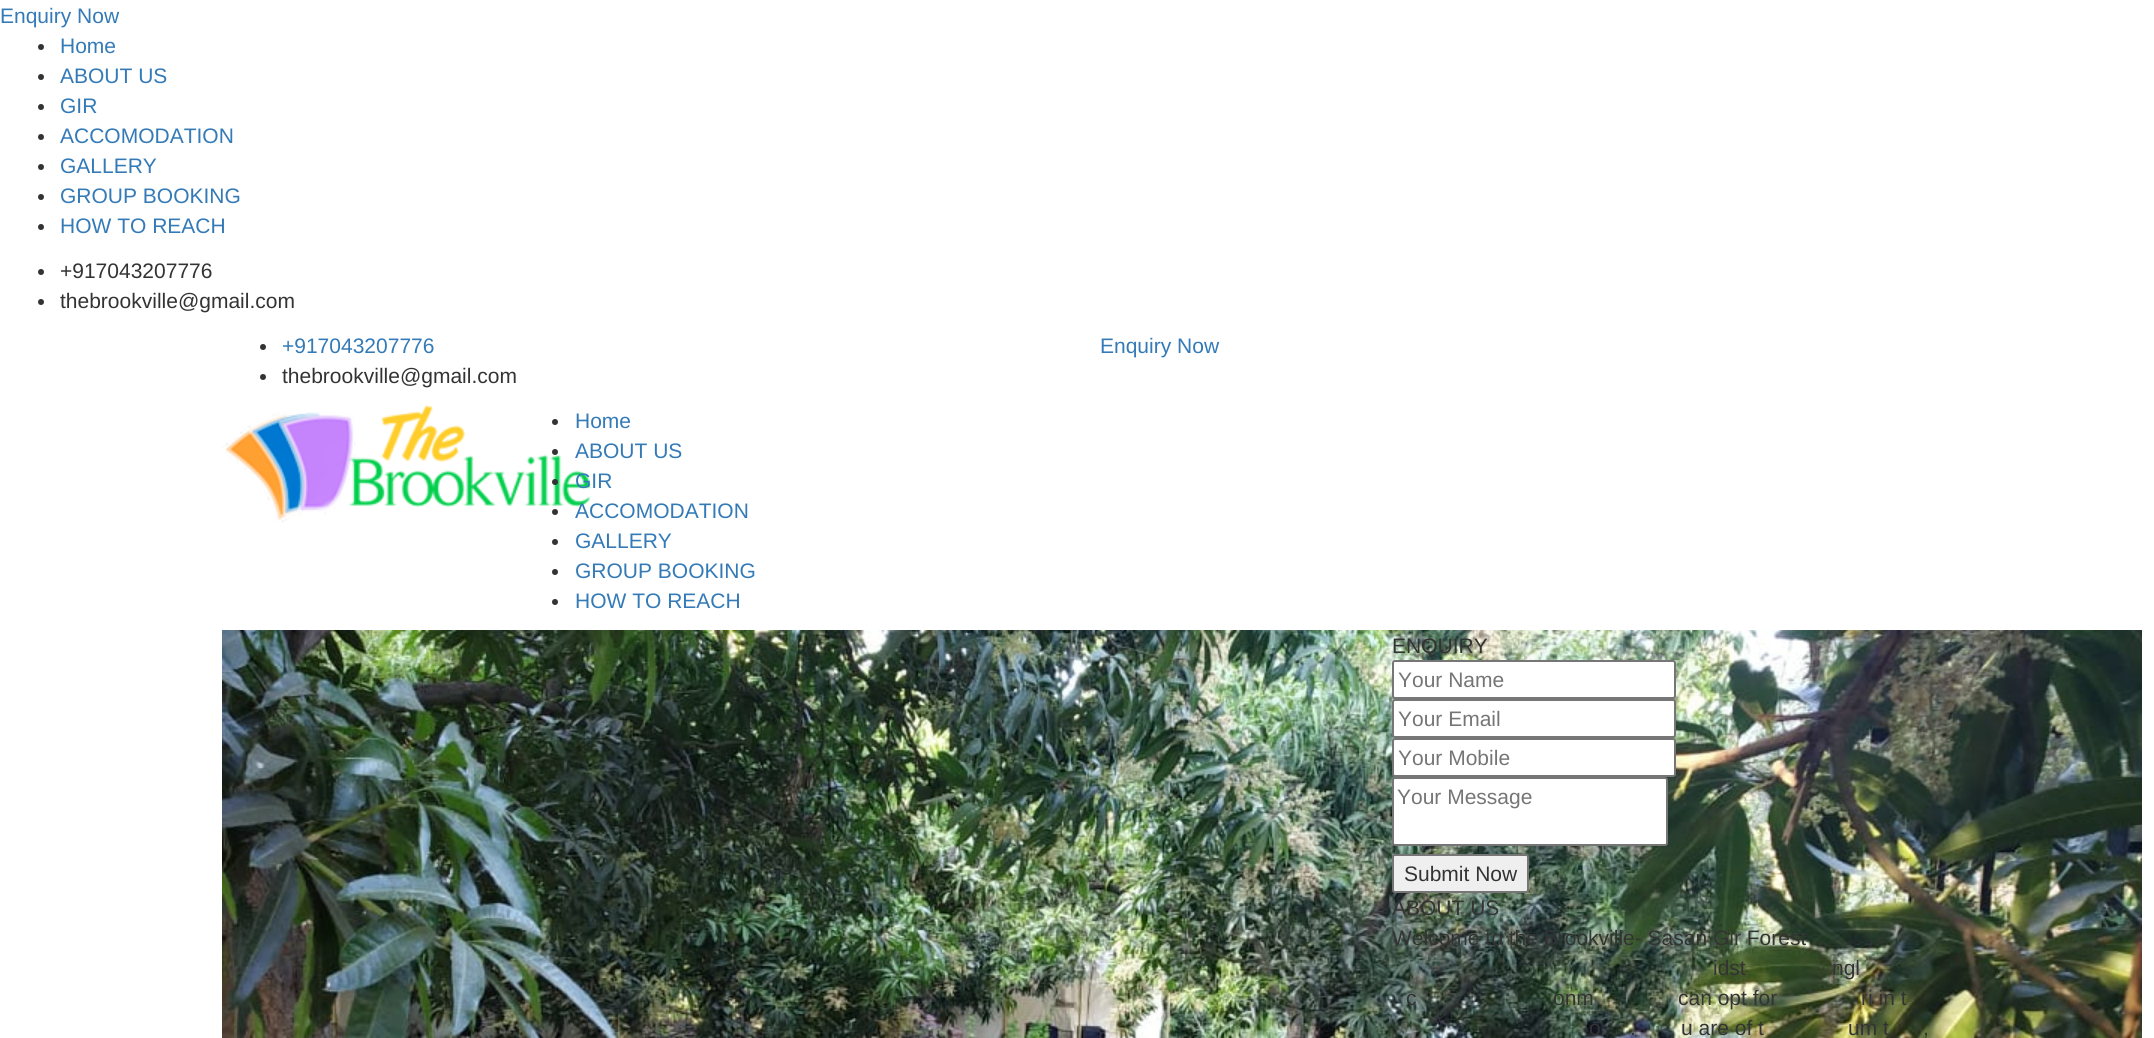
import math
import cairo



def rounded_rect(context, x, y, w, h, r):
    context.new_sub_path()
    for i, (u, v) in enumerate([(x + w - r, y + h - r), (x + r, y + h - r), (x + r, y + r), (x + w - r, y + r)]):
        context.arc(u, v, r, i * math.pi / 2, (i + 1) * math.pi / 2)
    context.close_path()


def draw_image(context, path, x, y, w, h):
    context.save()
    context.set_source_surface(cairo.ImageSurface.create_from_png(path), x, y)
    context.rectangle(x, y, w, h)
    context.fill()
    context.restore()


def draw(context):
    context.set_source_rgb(1, 1, 1)
    context.paint()
    context.set_source_rgb(51 / 255, 51 / 255, 51 / 255)
    context.arc(41, 47, 3, 0, 2 * math.pi)
    context.fill()
    context.arc(41, 77, 3, 0, 2 * math.pi)
    context.fill()
    context.arc(41, 107, 3, 0, 2 * math.pi)
    context.fill()
    context.arc(41, 137, 3, 0, 2 * math.pi)
    context.fill()
    context.arc(41, 167, 3, 0, 2 * math.pi)
    context.fill()
    context.arc(41, 197, 3, 0, 2 * math.pi)
    context.fill()
    context.arc(41, 227, 3, 0, 2 * math.pi)
    context.fill()
    context.arc(41, 272, 3, 0, 2 * math.pi)
    context.fill()
    context.arc(41, 302, 3, 0, 2 * math.pi)
    context.fill()
    context.arc(263, 347, 3, 0, 2 * math.pi)
    context.fill()
    context.arc(263, 377, 3, 0, 2 * math.pi)
    context.fill()
    draw_image(context, "images/1.png", 222, 405, 369, 118)
    context.arc(555, 422, 3, 0, 2 * math.pi)
    context.fill()
    context.arc(555, 452, 3, 0, 2 * math.pi)
    context.fill()
    context.arc(555, 482, 3, 0, 2 * math.pi)
    context.fill()
    context.arc(555, 512, 3, 0, 2 * math.pi)
    context.fill()
    context.arc(555, 542, 3, 0, 2 * math.pi)
    context.fill()
    context.arc(555, 572, 3, 0, 2 * math.pi)
    context.fill()
    context.arc(555, 602, 3, 0, 2 * math.pi)
    context.fill()
    draw_image(context, "images/2.png", 222, 630, 1920, 408)
    context.set_source_rgb(1, 1, 1)
    rounded_rect(context, 1393, 661, 282, 37, 2)
    context.fill_preserve()
    context.set_source_rgb(118 / 255, 118 / 255, 118 / 255)
    context.stroke()
    context.set_source_rgb(1, 1, 1)
    rounded_rect(context, 1393, 700, 282, 37, 2)
    context.fill_preserve()
    context.set_source_rgb(118 / 255, 118 / 255, 118 / 255)
    context.stroke()
    context.set_source_rgb(1, 1, 1)
    rounded_rect(context, 1393, 739, 282, 37, 2)
    context.fill_preserve()
    context.set_source_rgb(118 / 255, 118 / 255, 118 / 255)
    context.stroke()
    context.set_source_rgb(1, 1, 1)
    rounded_rect(context, 1393, 778, 274, 67, 2)
    context.fill_preserve()
    context.set_source_rgb(118 / 255, 118 / 255, 118 / 255)
    context.stroke()
    context.set_source_rgb(239 / 255, 239 / 255, 239 / 255)
    rounded_rect(context, 1393, 855, 135, 37, 2)
    context.fill_preserve()
    context.set_source_rgb(118 / 255, 118 / 255, 118 / 255)
    context.stroke()
    context.select_font_face("Liberation Sans")
    context.set_font_size(21)
    context.set_source_rgb(51 / 255, 122 / 255, 183 / 255)
    context.move_to(0, 23)
    context.show_text("Enquiry Now")
    context.move_to(60, 53)
    context.show_text("Home")
    context.move_to(60, 83)
    context.show_text("ABOUT US")
    context.move_to(60, 113)
    context.show_text("GIR")
    context.move_to(60, 143)
    context.show_text("ACCOMODATION")
    context.move_to(60, 173)
    context.show_text("GALLERY")
    context.move_to(60, 203)
    context.show_text("GROUP BOOKING")
    context.move_to(60, 233)
    context.show_text("HOW TO REACH")
    context.set_source_rgb(51 / 255, 51 / 255, 51 / 255)
    context.move_to(60, 278)
    context.show_text("+917043207776")
    context.move_to(60, 308)
    context.show_text("thebrookville@gmail.com")
    context.set_source_rgb(51 / 255, 122 / 255, 183 / 255)
    context.move_to(282, 353)
    context.show_text("+917043207776")
    context.set_source_rgb(51 / 255, 51 / 255, 51 / 255)
    context.move_to(282, 383)
    context.show_text("thebrookville@gmail.com")
    context.set_source_rgb(51 / 255, 122 / 255, 183 / 255)
    context.move_to(1100, 353)
    context.show_text("Enquiry Now")
    context.move_to(575, 428)
    context.show_text("Home")
    context.move_to(575, 458)
    context.show_text("ABOUT US")
    context.move_to(575, 488)
    context.show_text("GIR")
    context.move_to(575, 518)
    context.show_text("ACCOMODATION")
    context.move_to(575, 548)
    context.show_text("GALLERY")
    context.move_to(575, 578)
    context.show_text("GROUP BOOKING")
    context.move_to(575, 608)
    context.show_text("HOW TO REACH")
    context.set_source_rgb(51 / 255, 51 / 255, 51 / 255)
    context.move_to(1392, 653)
    context.show_text("ENQUIRY")
    context.set_source_rgb(117 / 255, 117 / 255, 117 / 255)
    context.move_to(1398, 687)
    context.show_text("Your Name")
    context.move_to(1398, 726)
    context.show_text("Your Email")
    context.move_to(1398, 765)
    context.show_text("Your Mobile")
    context.move_to(1397, 804)
    context.show_text("Your Message")
    context.set_source_rgb(51 / 255, 51 / 255, 51 / 255)
    context.move_to(1404, 881)
    context.show_text("Submit Now")
    context.move_to(1392, 915)
    context.show_text("ABOUT US")
    context.move_to(1392, 945)
    context.show_text("Welcome to the Brookville- Sasan Gir Forest")
    context.move_to(1713, 975)
    context.show_text("idst")
    context.move_to(1832, 975)
    context.show_text("ngl")
    context.move_to(1406, 1005)
    context.show_text("c")
    context.move_to(1553, 1005)
    context.show_text("onm")
    context.move_to(1678, 1005)
    context.show_text("can opt for")
    context.move_to(1861, 1005)
    context.show_text("ri in t")
    context.move_to(1589, 1035)
    context.show_text("o")
    context.move_to(1630, 1035)
    context.show_text(".")
    context.move_to(1681, 1035)
    context.show_text("u are of t")
    context.move_to(1848, 1035)
    context.show_text("um t")
    context.move_to(1923, 1035)
    context.show_text(",")


surface = cairo.ImageSurface(cairo.Format.RGB24, 2154, 1038)
context = cairo.Context(surface)
options = cairo.FontOptions()
options.set_hint_metrics(cairo.HintMetrics.OFF)
options.set_hint_style(cairo.HintStyle.NONE)
context.set_font_options(options)
context.set_miter_limit(4)
draw(context)
surface.write_to_png("out.png")
